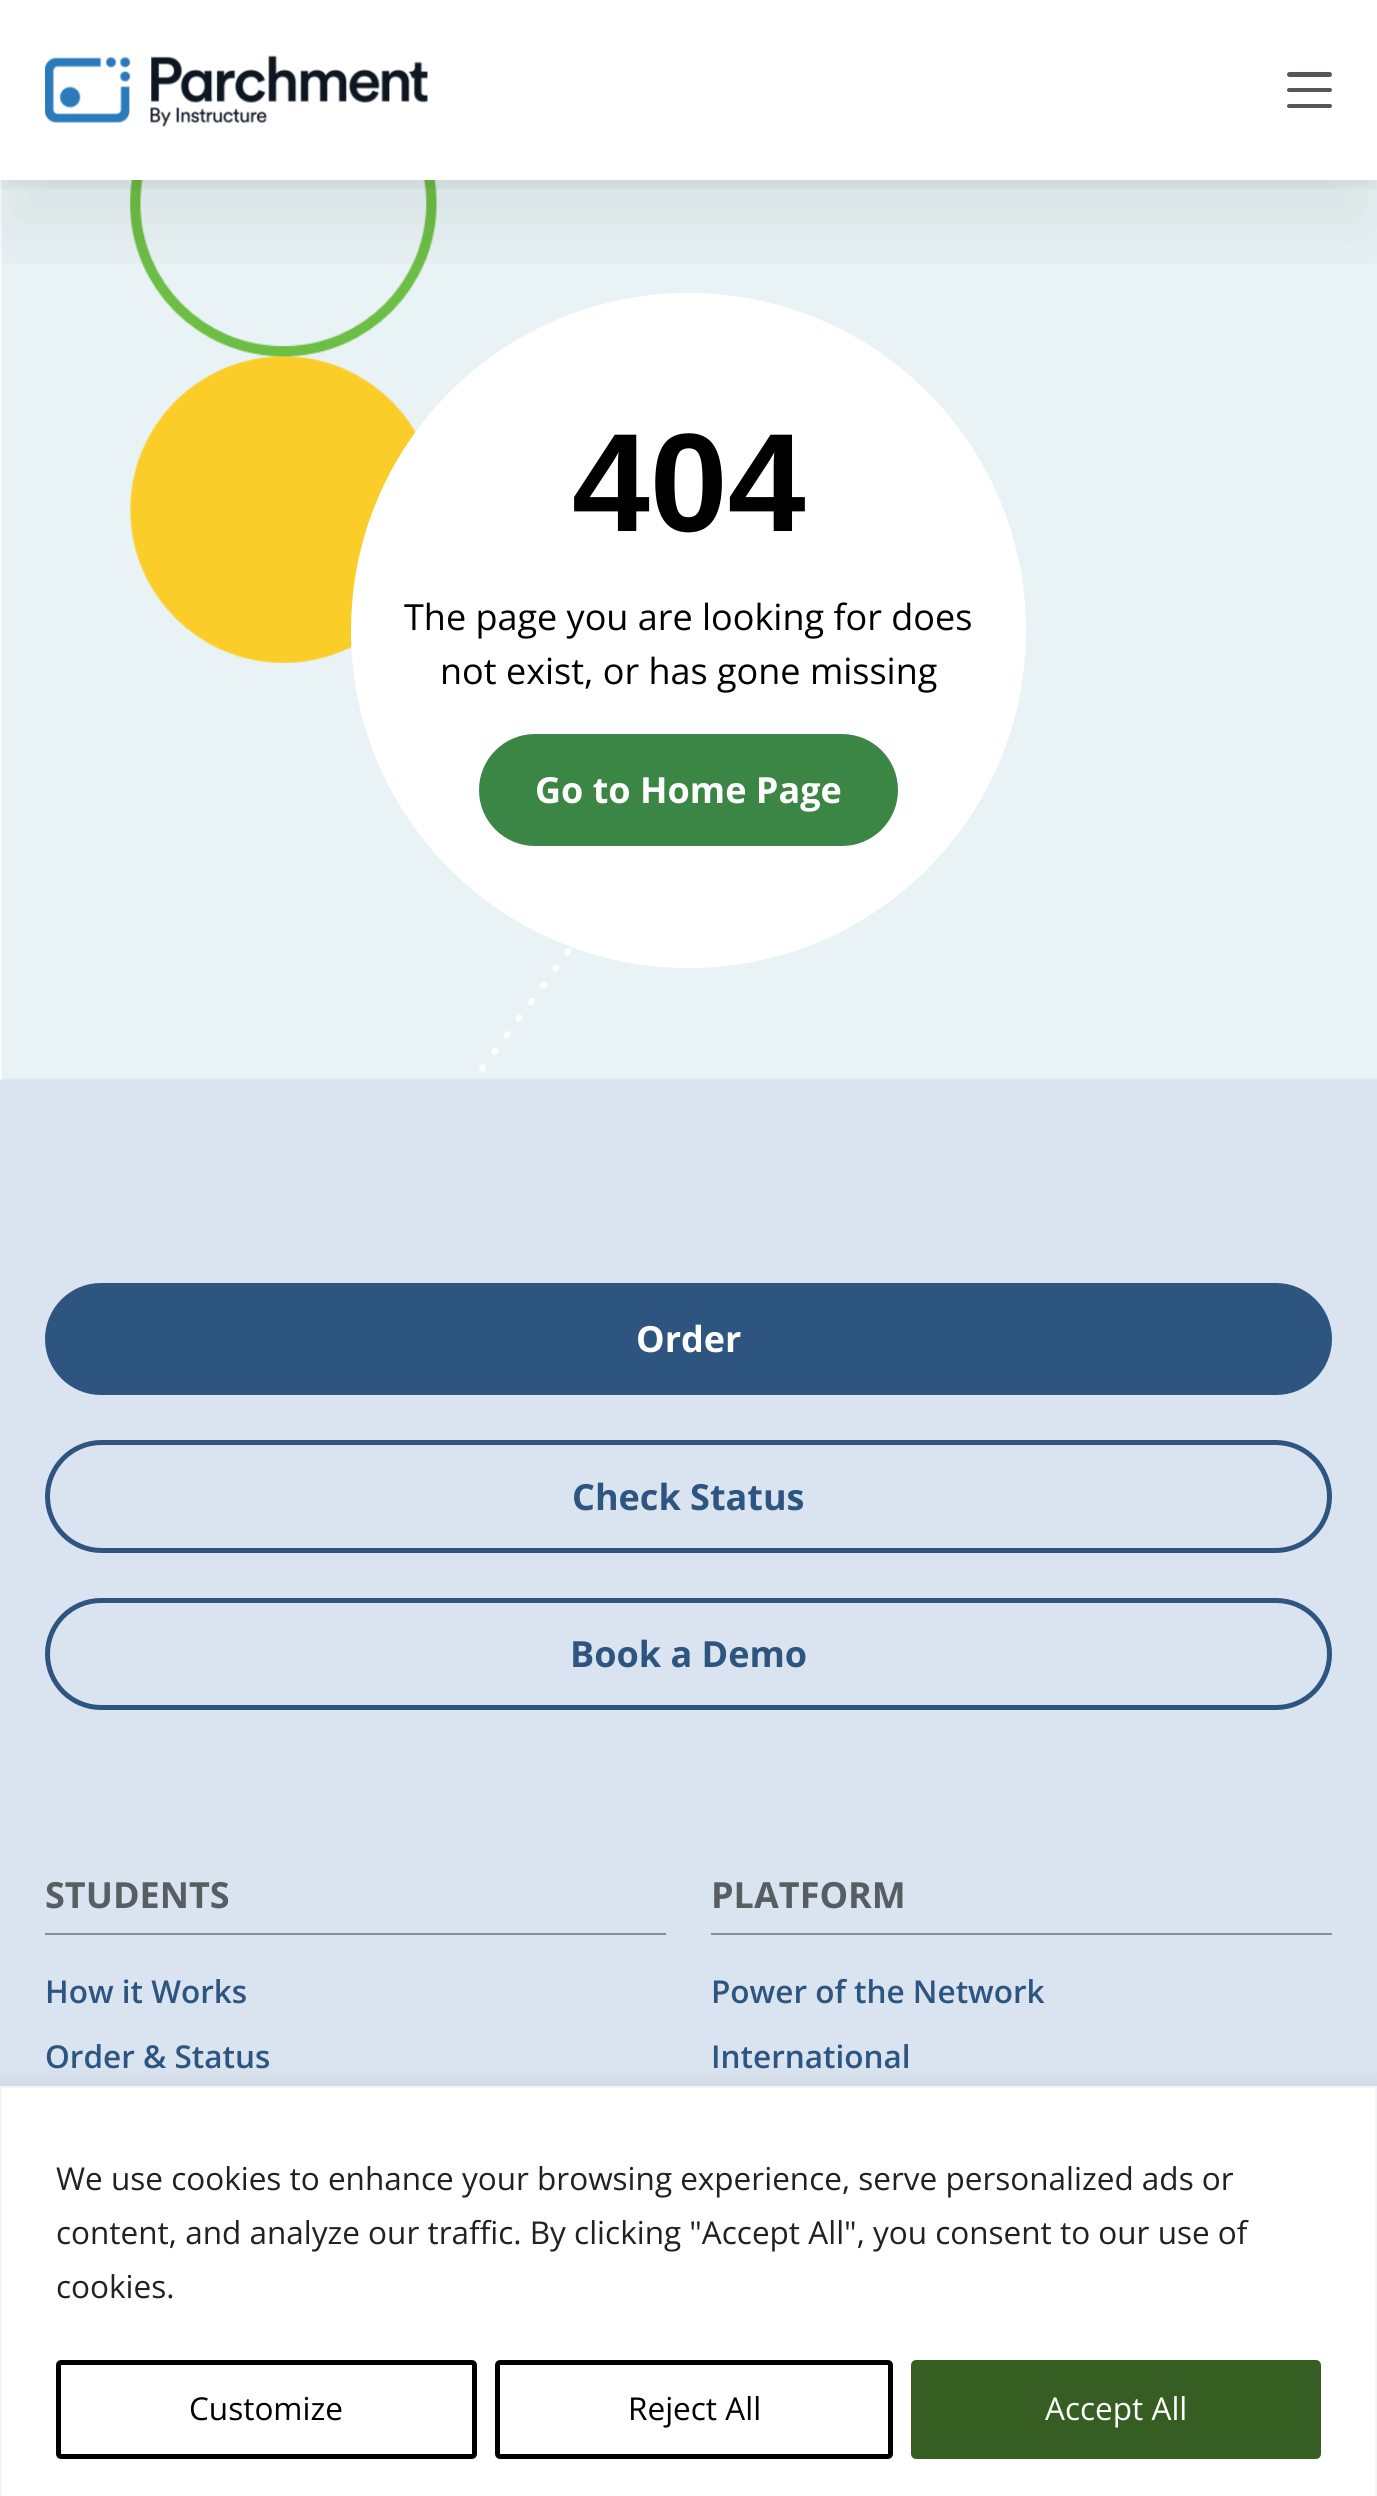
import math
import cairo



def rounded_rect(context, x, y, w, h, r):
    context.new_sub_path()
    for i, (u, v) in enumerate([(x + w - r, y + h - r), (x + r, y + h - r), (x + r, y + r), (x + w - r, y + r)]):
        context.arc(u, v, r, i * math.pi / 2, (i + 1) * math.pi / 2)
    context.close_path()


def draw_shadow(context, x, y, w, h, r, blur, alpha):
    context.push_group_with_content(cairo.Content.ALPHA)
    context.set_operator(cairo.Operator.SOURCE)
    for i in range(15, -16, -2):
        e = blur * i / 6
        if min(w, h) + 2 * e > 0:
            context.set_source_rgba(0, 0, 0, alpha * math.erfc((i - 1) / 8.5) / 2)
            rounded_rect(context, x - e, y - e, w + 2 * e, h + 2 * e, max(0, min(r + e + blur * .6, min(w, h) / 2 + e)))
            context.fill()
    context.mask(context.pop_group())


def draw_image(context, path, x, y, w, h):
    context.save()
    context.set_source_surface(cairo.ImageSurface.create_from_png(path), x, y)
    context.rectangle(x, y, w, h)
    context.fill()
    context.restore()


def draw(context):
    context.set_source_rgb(1, 1, 1)
    context.paint()
    draw_image(context, "images/2.png", 1, 180, 1376, 900)
    context.set_source_rgb(1, 1, 1)
    context.arc(688.5, 630.5, 337.5, 0, 2 * math.pi)
    context.fill()
    context.save()
    context.rectangle(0, 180, 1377, 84)
    context.clip()
    context.set_source_rgb(0, 0, 0)
    draw_shadow(context, 0, 54, 1377, 180, 0, 53, 0.07)
    context.restore()
    context.save()
    context.rectangle(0, 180, 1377, 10)
    context.clip()
    context.set_source_rgb(0, 0, 0)
    draw_shadow(context, 0, 9, 1377, 180, 0, 4.5, 0.05)
    context.restore()
    draw_image(context, "images/1.png", 45, 55, 383, 72)
    context.set_source_rgb(83 / 255, 88 / 255, 80 / 255)
    rounded_rect(context, 1287, 72, 45, 5, 2.5)
    context.fill()
    rounded_rect(context, 1287, 88, 45, 4, 2)
    context.fill()
    rounded_rect(context, 1287, 104, 45, 4, 2)
    context.fill()
    context.set_source_rgb(60 / 255, 134 / 255, 69 / 255)
    rounded_rect(context, 479, 734, 419, 112, 56)
    context.fill()
    context.set_source_rgb(217 / 255, 228 / 255, 240 / 255)
    context.rectangle(0, 1080, 1377, 1006)
    context.fill()
    context.set_source_rgb(45 / 255, 85 / 255, 127 / 255)
    rounded_rect(context, 45, 1283, 1287, 112, 56)
    context.fill()
    rounded_rect(context, 47.5, 1442.5, 1282, 108, 54)
    context.set_line_width(5)
    context.stroke()
    rounded_rect(context, 47.5, 1600.5, 1282, 107, 53.5)
    context.stroke()
    context.set_source_rgb(137 / 255, 141 / 255, 145 / 255)
    context.rectangle(45, 1933, 621, 2)
    context.fill()
    context.rectangle(711, 1933, 621, 2)
    context.fill()
    context.set_source_rgb(172 / 255, 171 / 255, 171 / 255)
    draw_shadow(context, 0, 2084, 1377, 411, 0, 11, 0.3)
    context.set_source_rgb(1, 1, 1)
    context.rectangle(1, 2087, 1375, 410)
    context.fill_preserve()
    context.set_source_rgb(244 / 255, 244 / 255, 244 / 255)
    context.set_line_width(2)
    context.stroke()
    rounded_rect(context, 58.5, 2362.5, 416, 94, 2.5)
    context.set_source_rgb(0, 0, 0)
    context.set_line_width(5)
    context.stroke()
    rounded_rect(context, 497.5, 2362.5, 393, 94, 2.5)
    context.stroke()
    context.set_source_rgb(54 / 255, 94 / 255, 35 / 255)
    rounded_rect(context, 913.5, 2362.5, 405, 94, 2.5)
    context.fill_preserve()
    context.stroke()
    context.select_font_face("Liberation Sans", cairo.FontSlant.NORMAL, cairo.FontWeight.BOLD)
    context.set_font_size(140)
    context.set_source_rgb(0, 0, 0)
    context.move_to(572, 531)
    context.show_text("404")
    context.select_font_face("Open Sans")
    context.set_font_size(36)
    context.move_to(404, 630)
    context.show_text("The page you are looking for does")
    context.move_to(440, 684)
    context.show_text("not exist, or has gone missing")
    context.select_font_face("Open Sans", cairo.FontSlant.NORMAL, cairo.FontWeight.BOLD)
    context.set_source_rgb(1, 1, 1)
    context.move_to(535, 803)
    context.show_text("Go to Home Page")
    context.move_to(636, 1352)
    context.show_text("Order")
    context.set_source_rgb(45 / 255, 85 / 255, 127 / 255)
    context.move_to(572, 1510)
    context.show_text("Check Status")
    context.move_to(570, 1667)
    context.show_text("Book a Demo")
    context.set_source_rgb(87 / 255, 93 / 255, 98 / 255)
    context.move_to(45, 1908)
    context.show_text("STUDENTS")
    context.select_font_face("Open Sans SemiBold")
    context.set_font_size(31.5)
    context.set_source_rgb(45 / 255, 85 / 255, 127 / 255)
    context.move_to(45, 2003)
    context.show_text("How it Works")
    context.move_to(45, 2068)
    context.show_text("Order & Status")
    context.select_font_face("Open Sans", cairo.FontSlant.NORMAL, cairo.FontWeight.BOLD)
    context.set_font_size(36)
    context.set_source_rgb(87 / 255, 93 / 255, 98 / 255)
    context.move_to(711, 1908)
    context.show_text("PLATFORM")
    context.select_font_face("Open Sans SemiBold")
    context.set_font_size(31.5)
    context.set_source_rgb(45 / 255, 85 / 255, 127 / 255)
    context.move_to(711, 2003)
    context.show_text("Power of the Network")
    context.move_to(711, 2068)
    context.show_text("International")
    context.select_font_face("Open Sans")
    context.set_source_rgb(33 / 255, 33 / 255, 33 / 255)
    context.move_to(56, 2190)
    context.show_text("We use cookies to enhance your browsing experience, serve personalized ads or")
    context.move_to(56, 2244)
    context.show_text("content, and analyze our traffic. By clicking \"Accept All\", you consent to our use of")
    context.move_to(56, 2298)
    context.show_text("cookies.")
    context.set_source_rgb(0, 0, 0)
    context.move_to(189, 2420)
    context.show_text("Customize")
    context.move_to(628, 2420)
    context.show_text("Reject All")
    context.set_source_rgb(1, 1, 1)
    context.move_to(1045, 2420)
    context.show_text("Accept All")


surface = cairo.ImageSurface(cairo.Format.RGB24, 1377, 2496)
context = cairo.Context(surface)
options = cairo.FontOptions()
options.set_hint_metrics(cairo.HintMetrics.OFF)
options.set_hint_style(cairo.HintStyle.NONE)
context.set_font_options(options)
context.set_miter_limit(4)
draw(context)
surface.write_to_png("out.png")
